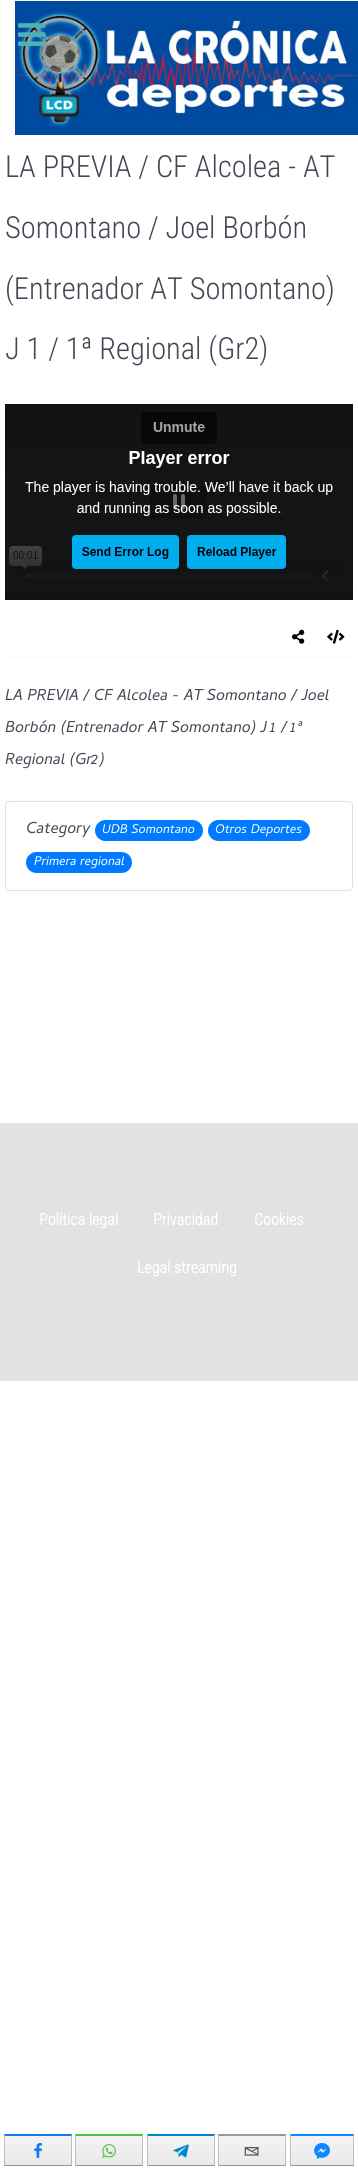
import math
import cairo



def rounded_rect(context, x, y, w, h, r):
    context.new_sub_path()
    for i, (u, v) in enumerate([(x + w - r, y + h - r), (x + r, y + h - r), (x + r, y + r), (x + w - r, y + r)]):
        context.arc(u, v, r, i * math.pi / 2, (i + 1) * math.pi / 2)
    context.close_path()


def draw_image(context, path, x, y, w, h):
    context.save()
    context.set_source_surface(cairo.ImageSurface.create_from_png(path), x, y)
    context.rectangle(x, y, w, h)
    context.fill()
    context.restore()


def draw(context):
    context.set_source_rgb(1, 1, 1)
    context.paint()
    draw_image(context, "images/1.png", 15, 1, 343, 134)
    draw_image(context, "images/2.png", 18, 23, 28, 23)
    context.set_source_rgb(18 / 255, 18 / 255, 18 / 255)
    context.rectangle(5, 404, 348, 196)
    context.fill()
    draw_image(context, "images/3.png", 5, 412, 348, 182)
    context.set_source_rgb(248 / 255, 249 / 255, 250 / 255)
    context.rectangle(5, 656, 348, 1)
    context.fill()
    draw_image(context, "images/4.png", 292, 629, 13, 15)
    draw_image(context, "images/5.png", 327, 629, 18, 15)
    rounded_rect(context, 5.5, 801.5, 347, 89, 3.5)
    context.set_source_rgb(223 / 255, 223 / 255, 223 / 255)
    context.set_line_width(1)
    context.stroke()
    context.set_source_rgb(0, 123 / 255, 1)
    rounded_rect(context, 95, 820, 108, 21, 10.5)
    context.fill()
    rounded_rect(context, 208, 820, 102, 21, 10.5)
    context.fill()
    rounded_rect(context, 26, 852, 106, 21, 10.5)
    context.fill()
    context.set_source_rgb(226 / 255, 226 / 255, 226 / 255)
    context.rectangle(0, 1123, 358, 258)
    context.fill()
    gradient = cairo.LinearGradient(5, 2107, 5, 2136)
    gradient.add_color_stop_rgba(0.05, 243 / 255, 243 / 255, 245 / 255, 1)
    gradient.add_color_stop_rgba(1, 233 / 255, 233 / 255, 233 / 255, 1)
    context.set_source(gradient)
    context.rectangle(4, 2134, 68, 2)
    context.fill()
    gradient = cairo.LinearGradient(5, 2136, 5, 2165)
    gradient.add_color_stop_rgba(0.05, 243 / 255, 243 / 255, 245 / 255, 1)
    gradient.add_color_stop_rgba(1, 233 / 255, 233 / 255, 233 / 255, 1)
    context.set_source(gradient)
    context.rectangle(4, 2136, 68, 29)
    context.fill()
    gradient = cairo.LinearGradient(5, 2165, 5, 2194)
    gradient.add_color_stop_rgba(0.05, 243 / 255, 243 / 255, 245 / 255, 1)
    gradient.add_color_stop_rgba(1, 233 / 255, 233 / 255, 233 / 255, 1)
    context.set_source(gradient)
    context.rectangle(4, 2165, 68, 1)
    context.fill()
    context.set_source_rgb(22 / 255, 120 / 255, 242 / 255)
    context.new_path()
    context.move_to(4, 2134)
    context.line_to(72, 2134)
    context.line_to(71, 2136)
    context.line_to(5, 2136)
    context.close_path()
    context.fill()
    context.set_source_rgba(0, 0, 0, 0.2)
    context.new_path()
    context.move_to(72, 2134)
    context.line_to(72, 2166)
    context.line_to(71, 2165)
    context.line_to(71, 2136)
    context.close_path()
    context.fill()
    context.set_source_rgba(0, 0, 0, 0.4)
    context.new_path()
    context.move_to(72, 2166)
    context.line_to(4, 2166)
    context.line_to(5, 2165)
    context.line_to(71, 2165)
    context.close_path()
    context.fill()
    context.set_source_rgba(0, 0, 0, 0.2)
    context.new_path()
    context.move_to(4, 2166)
    context.line_to(4, 2134)
    context.line_to(5, 2136)
    context.line_to(5, 2165)
    context.close_path()
    context.fill()
    draw_image(context, "images/6.png", 34, 2143, 8, 15)
    gradient = cairo.LinearGradient(76, 2107, 76, 2136)
    gradient.add_color_stop_rgba(0.05, 243 / 255, 243 / 255, 245 / 255, 1)
    gradient.add_color_stop_rgba(1, 233 / 255, 233 / 255, 233 / 255, 1)
    context.set_source(gradient)
    context.rectangle(75, 2134, 68, 2)
    context.fill()
    gradient = cairo.LinearGradient(76, 2136, 76, 2165)
    gradient.add_color_stop_rgba(0.05, 243 / 255, 243 / 255, 245 / 255, 1)
    gradient.add_color_stop_rgba(1, 233 / 255, 233 / 255, 233 / 255, 1)
    context.set_source(gradient)
    context.rectangle(75, 2136, 68, 29)
    context.fill()
    gradient = cairo.LinearGradient(76, 2165, 76, 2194)
    gradient.add_color_stop_rgba(0.05, 243 / 255, 243 / 255, 245 / 255, 1)
    gradient.add_color_stop_rgba(1, 233 / 255, 233 / 255, 233 / 255, 1)
    context.set_source(gradient)
    context.rectangle(75, 2165, 68, 1)
    context.fill()
    context.set_source_rgb(77 / 255, 194 / 255, 71 / 255)
    context.new_path()
    context.move_to(75, 2134)
    context.line_to(143, 2134)
    context.line_to(142, 2136)
    context.line_to(76, 2136)
    context.close_path()
    context.fill()
    context.set_source_rgba(0, 0, 0, 0.2)
    context.new_path()
    context.move_to(143, 2134)
    context.line_to(143, 2166)
    context.line_to(142, 2165)
    context.line_to(142, 2136)
    context.close_path()
    context.fill()
    context.set_source_rgba(0, 0, 0, 0.4)
    context.new_path()
    context.move_to(143, 2166)
    context.line_to(75, 2166)
    context.line_to(76, 2165)
    context.line_to(142, 2165)
    context.close_path()
    context.fill()
    context.set_source_rgba(0, 0, 0, 0.2)
    context.new_path()
    context.move_to(75, 2166)
    context.line_to(75, 2134)
    context.line_to(76, 2136)
    context.line_to(76, 2165)
    context.close_path()
    context.fill()
    draw_image(context, "images/7.png", 102, 2144, 14, 14)
    gradient = cairo.LinearGradient(148, 2107, 148, 2136)
    gradient.add_color_stop_rgba(0.05, 243 / 255, 243 / 255, 245 / 255, 1)
    gradient.add_color_stop_rgba(1, 233 / 255, 233 / 255, 233 / 255, 1)
    context.set_source(gradient)
    context.rectangle(147, 2134, 68, 2)
    context.fill()
    gradient = cairo.LinearGradient(148, 2136, 148, 2165)
    gradient.add_color_stop_rgba(0.05, 243 / 255, 243 / 255, 245 / 255, 1)
    gradient.add_color_stop_rgba(1, 233 / 255, 233 / 255, 233 / 255, 1)
    context.set_source(gradient)
    context.rectangle(147, 2136, 68, 29)
    context.fill()
    gradient = cairo.LinearGradient(148, 2165, 148, 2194)
    gradient.add_color_stop_rgba(0.05, 243 / 255, 243 / 255, 245 / 255, 1)
    gradient.add_color_stop_rgba(1, 233 / 255, 233 / 255, 233 / 255, 1)
    context.set_source(gradient)
    context.rectangle(147, 2165, 68, 1)
    context.fill()
    context.set_source_rgb(0, 136 / 255, 204 / 255)
    context.new_path()
    context.move_to(147, 2134)
    context.line_to(215, 2134)
    context.line_to(214, 2136)
    context.line_to(148, 2136)
    context.close_path()
    context.fill()
    context.set_source_rgba(0, 0, 0, 0.2)
    context.new_path()
    context.move_to(215, 2134)
    context.line_to(215, 2166)
    context.line_to(214, 2165)
    context.line_to(214, 2136)
    context.close_path()
    context.fill()
    context.set_source_rgba(0, 0, 0, 0.4)
    context.new_path()
    context.move_to(215, 2166)
    context.line_to(147, 2166)
    context.line_to(148, 2165)
    context.line_to(214, 2165)
    context.close_path()
    context.fill()
    context.set_source_rgba(0, 0, 0, 0.2)
    context.new_path()
    context.move_to(147, 2166)
    context.line_to(147, 2134)
    context.line_to(148, 2136)
    context.line_to(148, 2165)
    context.close_path()
    context.fill()
    draw_image(context, "images/8.png", 173, 2144, 16, 14)
    gradient = cairo.LinearGradient(219, 2107, 219, 2136)
    gradient.add_color_stop_rgba(0.05, 243 / 255, 243 / 255, 245 / 255, 1)
    gradient.add_color_stop_rgba(1, 233 / 255, 233 / 255, 233 / 255, 1)
    context.set_source(gradient)
    context.rectangle(218, 2134, 68, 2)
    context.fill()
    gradient = cairo.LinearGradient(219, 2136, 219, 2165)
    gradient.add_color_stop_rgba(0.05, 243 / 255, 243 / 255, 245 / 255, 1)
    gradient.add_color_stop_rgba(1, 233 / 255, 233 / 255, 233 / 255, 1)
    context.set_source(gradient)
    context.rectangle(218, 2136, 68, 29)
    context.fill()
    gradient = cairo.LinearGradient(219, 2165, 219, 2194)
    gradient.add_color_stop_rgba(0.05, 243 / 255, 243 / 255, 245 / 255, 1)
    gradient.add_color_stop_rgba(1, 233 / 255, 233 / 255, 233 / 255, 1)
    context.set_source(gradient)
    context.rectangle(218, 2165, 68, 1)
    context.fill()
    context.set_source_rgb(153 / 255, 153 / 255, 153 / 255)
    context.new_path()
    context.move_to(218, 2134)
    context.line_to(286, 2134)
    context.line_to(285, 2136)
    context.line_to(219, 2136)
    context.close_path()
    context.fill()
    context.set_source_rgba(0, 0, 0, 0.2)
    context.new_path()
    context.move_to(286, 2134)
    context.line_to(286, 2166)
    context.line_to(285, 2165)
    context.line_to(285, 2136)
    context.close_path()
    context.fill()
    context.set_source_rgba(0, 0, 0, 0.4)
    context.new_path()
    context.move_to(286, 2166)
    context.line_to(218, 2166)
    context.line_to(219, 2165)
    context.line_to(285, 2165)
    context.close_path()
    context.fill()
    context.set_source_rgba(0, 0, 0, 0.2)
    context.new_path()
    context.move_to(218, 2166)
    context.line_to(218, 2134)
    context.line_to(219, 2136)
    context.line_to(219, 2165)
    context.close_path()
    context.fill()
    draw_image(context, "images/9.png", 244, 2147, 15, 9)
    gradient = cairo.LinearGradient(291, 2107, 291, 2136)
    gradient.add_color_stop_rgba(0.05, 243 / 255, 243 / 255, 245 / 255, 1)
    gradient.add_color_stop_rgba(1, 233 / 255, 233 / 255, 233 / 255, 1)
    context.set_source(gradient)
    context.rectangle(290, 2134, 64, 2)
    context.fill()
    gradient = cairo.LinearGradient(291, 2136, 291, 2165)
    gradient.add_color_stop_rgba(0.05, 243 / 255, 243 / 255, 245 / 255, 1)
    gradient.add_color_stop_rgba(1, 233 / 255, 233 / 255, 233 / 255, 1)
    context.set_source(gradient)
    context.rectangle(290, 2136, 64, 29)
    context.fill()
    gradient = cairo.LinearGradient(291, 2165, 291, 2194)
    gradient.add_color_stop_rgba(0.05, 243 / 255, 243 / 255, 245 / 255, 1)
    gradient.add_color_stop_rgba(1, 233 / 255, 233 / 255, 233 / 255, 1)
    context.set_source(gradient)
    context.rectangle(290, 2165, 64, 1)
    context.fill()
    context.set_source_rgb(13 / 255, 135 / 255, 1)
    context.new_path()
    context.move_to(290, 2134)
    context.line_to(354, 2134)
    context.line_to(353, 2136)
    context.line_to(291, 2136)
    context.close_path()
    context.fill()
    context.set_source_rgba(0, 0, 0, 0.2)
    context.new_path()
    context.move_to(354, 2134)
    context.line_to(354, 2166)
    context.line_to(353, 2165)
    context.line_to(353, 2136)
    context.close_path()
    context.fill()
    context.set_source_rgba(0, 0, 0, 0.4)
    context.new_path()
    context.move_to(354, 2166)
    context.line_to(290, 2166)
    context.line_to(291, 2165)
    context.line_to(353, 2165)
    context.close_path()
    context.fill()
    context.set_source_rgba(0, 0, 0, 0.2)
    context.new_path()
    context.move_to(290, 2166)
    context.line_to(290, 2134)
    context.line_to(291, 2136)
    context.line_to(291, 2165)
    context.close_path()
    context.fill()
    draw_image(context, "images/10.png", 314, 2143, 16, 16)
    context.select_font_face("Roboto Condensed Light")
    context.set_font_size(30.4)
    context.set_source_rgb(66 / 255, 71 / 255, 83 / 255)
    context.move_to(5, 177)
    context.show_text("LA PREVIA / CF Alcolea - AT")
    context.move_to(5, 238)
    context.show_text("Somontano / Joel Borbón")
    context.move_to(5, 299)
    context.show_text("(Entrenador AT Somontano)")
    context.move_to(5, 359)
    context.show_text("J 1 / 1ª Regional (Gr2)")
    context.select_font_face("Cambay", cairo.FontSlant.ITALIC)
    context.set_font_size(16)
    context.move_to(5, 700)
    context.show_text("LA PREVIA / CF Alcolea - AT Somontano / Joel")
    context.move_to(5, 732)
    context.show_text("Borbón (Entrenador AT Somontano) J 1 / 1ª")
    context.move_to(5, 764)
    context.show_text("Regional (Gr2)")
    context.move_to(26, 833)
    context.show_text("Category")
    context.set_font_size(12.75)
    context.set_source_rgb(1, 1, 1)
    context.move_to(102, 833)
    context.show_text("UDB Somontano")
    context.move_to(215, 833)
    context.show_text("Otros Deportes")
    context.move_to(34, 865)
    context.show_text("Primera regional")
    context.select_font_face("Roboto Condensed", cairo.FontSlant.NORMAL, cairo.FontWeight.BOLD)
    context.set_font_size(16)
    context.move_to(39, 1225)
    context.show_text("Política legal")
    context.move_to(153, 1225)
    context.show_text("Privacidad")
    context.move_to(254, 1225)
    context.show_text("Cookies")
    context.move_to(137, 1273)
    context.show_text("Legal streaming")


surface = cairo.ImageSurface(cairo.Format.RGB24, 358, 2171)
context = cairo.Context(surface)
options = cairo.FontOptions()
options.set_hint_metrics(cairo.HintMetrics.OFF)
options.set_hint_style(cairo.HintStyle.NONE)
context.set_font_options(options)
context.set_miter_limit(4)
draw(context)
surface.write_to_png("out.png")
